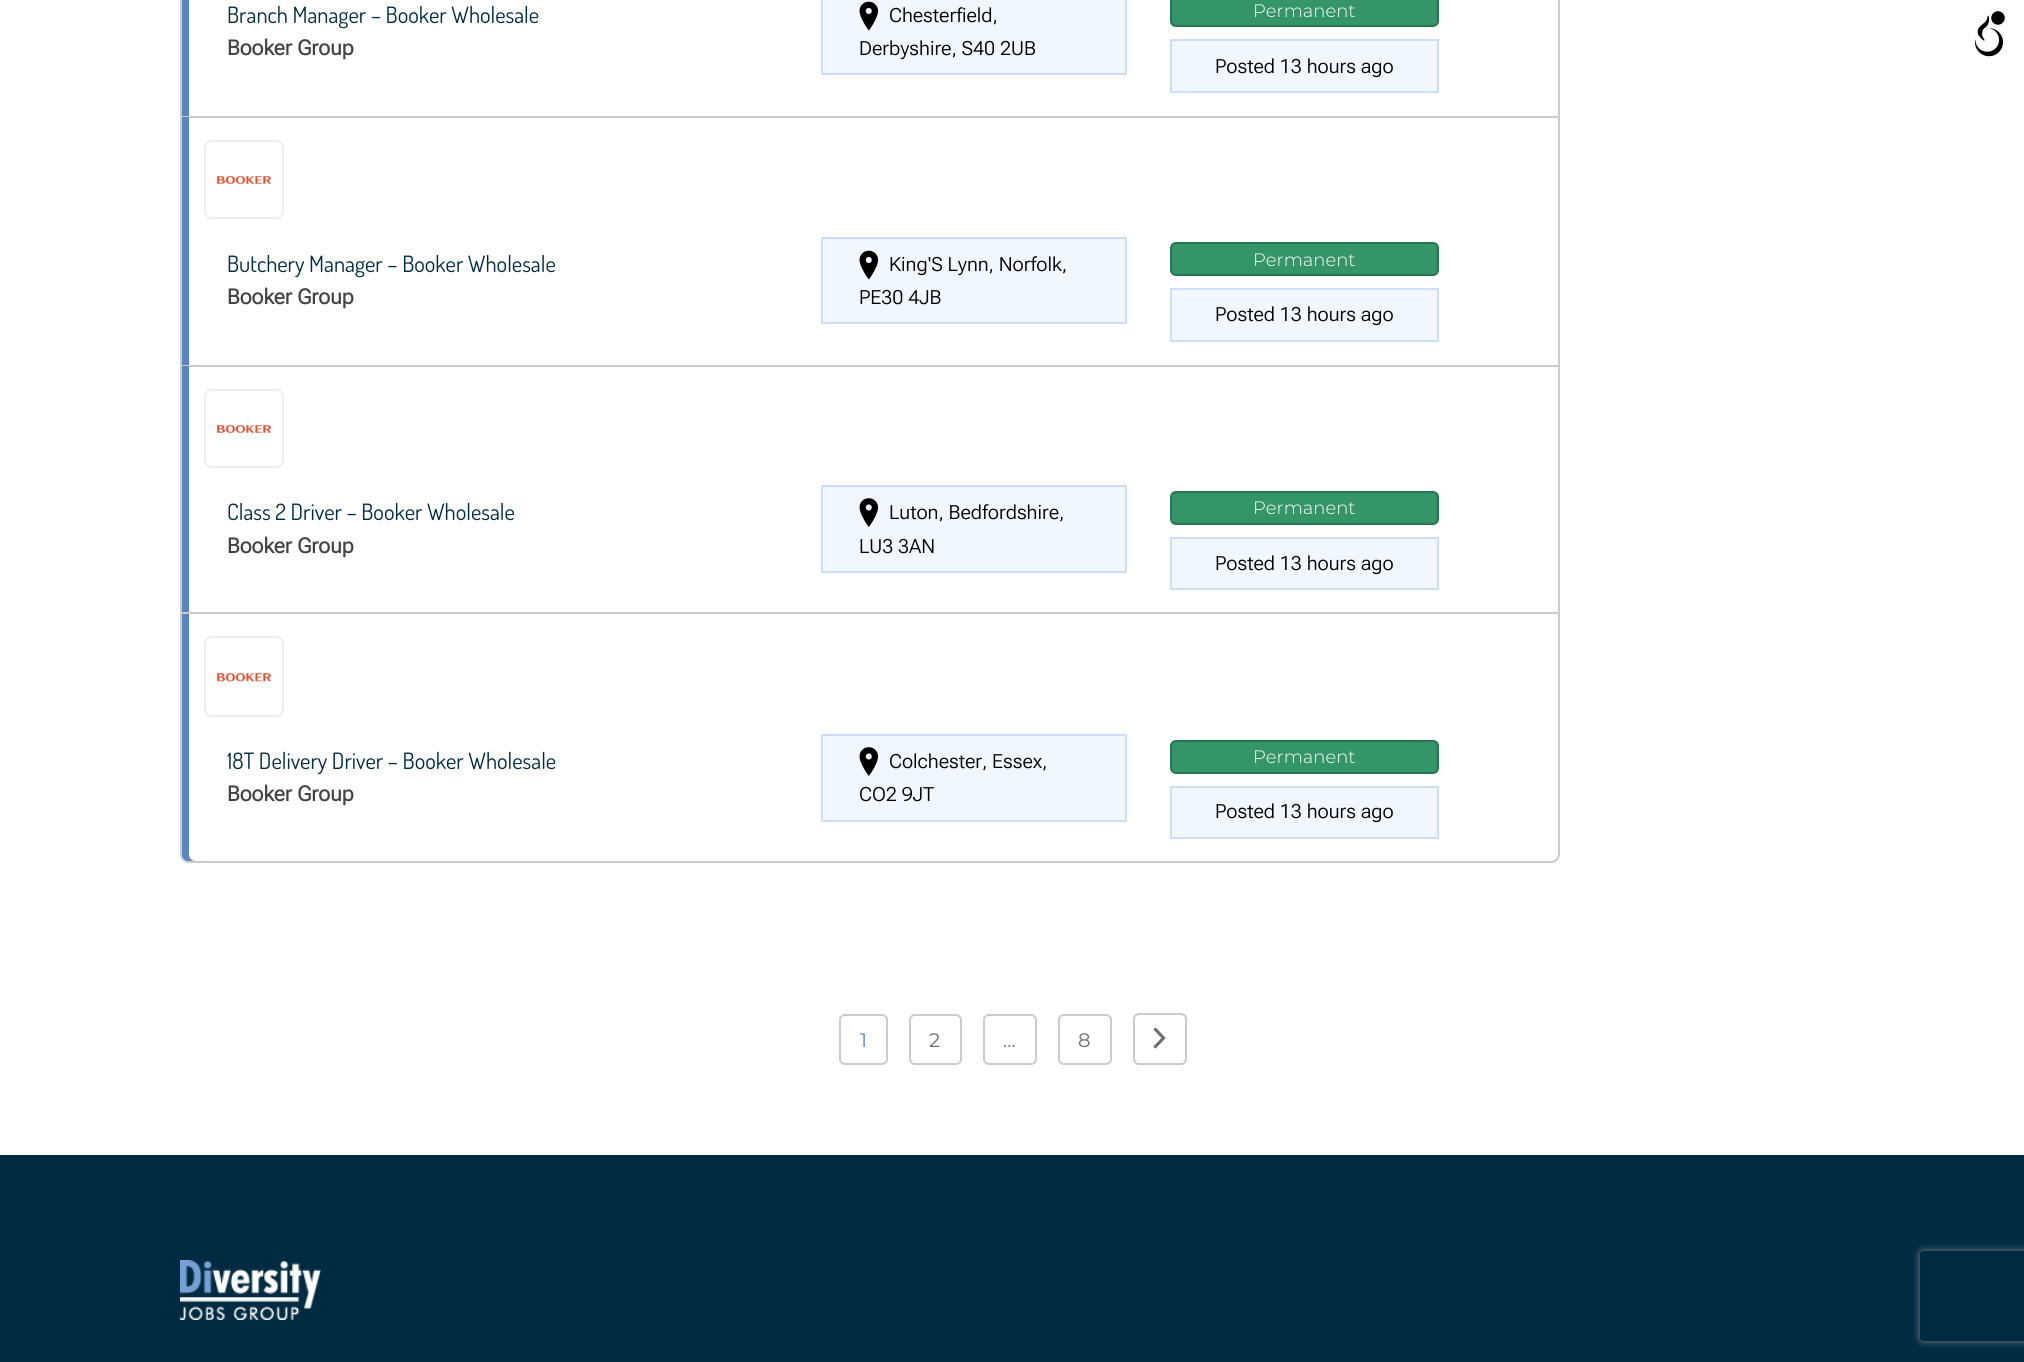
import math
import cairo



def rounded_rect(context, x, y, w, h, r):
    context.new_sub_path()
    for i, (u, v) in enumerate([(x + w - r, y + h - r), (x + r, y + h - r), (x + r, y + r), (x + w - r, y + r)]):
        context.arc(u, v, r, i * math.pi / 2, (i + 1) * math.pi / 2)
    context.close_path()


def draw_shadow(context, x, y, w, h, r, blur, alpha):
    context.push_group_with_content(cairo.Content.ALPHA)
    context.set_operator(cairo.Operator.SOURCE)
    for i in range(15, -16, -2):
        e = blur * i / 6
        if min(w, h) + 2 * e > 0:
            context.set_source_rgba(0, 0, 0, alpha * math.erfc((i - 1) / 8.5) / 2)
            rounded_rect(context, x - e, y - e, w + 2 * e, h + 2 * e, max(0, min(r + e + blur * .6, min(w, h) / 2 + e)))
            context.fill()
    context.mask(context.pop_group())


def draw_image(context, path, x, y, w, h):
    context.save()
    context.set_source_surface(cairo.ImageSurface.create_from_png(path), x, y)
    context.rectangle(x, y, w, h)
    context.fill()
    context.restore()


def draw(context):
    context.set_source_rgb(1, 1, 1)
    context.paint()
    rounded_rect(context, 181, -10, 1378, 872, 8)
    context.set_source_rgb(204 / 255, 204 / 255, 204 / 255)
    context.stroke()
    context.set_source_rgb(91 / 255, 132 / 255, 194 / 255)
    context.rectangle(182, 0, 7, 116)
    context.fill()
    context.set_source_rgb(204 / 255, 204 / 255, 204 / 255)
    context.rectangle(182, 116, 1377, 2)
    context.fill()
    context.set_source_rgb(242 / 255, 247 / 255, 1)
    context.rectangle(822, -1, 304, 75)
    context.fill_preserve()
    context.set_source_rgb(204 / 255, 222 / 255, 252 / 255)
    context.stroke()
    draw_image(context, "images/1.png", 859, 1, 20, 30)
    context.set_source_rgb(52 / 255, 149 / 255, 104 / 255)
    rounded_rect(context, 1171, -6, 267, 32, 5)
    context.fill_preserve()
    context.set_source_rgb(38 / 255, 119 / 255, 81 / 255)
    context.stroke()
    context.set_source_rgb(242 / 255, 247 / 255, 1)
    context.rectangle(1171, 40, 267, 52)
    context.fill_preserve()
    context.set_source_rgb(204 / 255, 222 / 255, 252 / 255)
    context.stroke()
    context.set_source_rgb(91 / 255, 132 / 255, 194 / 255)
    context.rectangle(182, 117, 7, 248)
    context.fill()
    context.set_source_rgb(204 / 255, 204 / 255, 204 / 255)
    context.rectangle(182, 365, 1377, 2)
    context.fill()
    rounded_rect(context, 205, 141, 78, 77, 7)
    context.set_source_rgb(237 / 255, 237 / 255, 237 / 255)
    context.stroke()
    draw_image(context, "images/2.png", 216, 175, 55, 9)
    context.set_source_rgb(242 / 255, 247 / 255, 1)
    context.rectangle(822, 238, 304, 85)
    context.fill_preserve()
    context.set_source_rgb(204 / 255, 222 / 255, 252 / 255)
    context.stroke()
    draw_image(context, "images/1.png", 859, 250, 20, 30)
    context.set_source_rgb(52 / 255, 149 / 255, 104 / 255)
    rounded_rect(context, 1171, 243, 267, 32, 5)
    context.fill_preserve()
    context.set_source_rgb(38 / 255, 119 / 255, 81 / 255)
    context.stroke()
    context.set_source_rgb(242 / 255, 247 / 255, 1)
    context.rectangle(1171, 289, 267, 52)
    context.fill_preserve()
    context.set_source_rgb(204 / 255, 222 / 255, 252 / 255)
    context.stroke()
    context.set_source_rgb(91 / 255, 132 / 255, 194 / 255)
    context.rectangle(182, 366, 7, 246)
    context.fill()
    context.set_source_rgb(204 / 255, 204 / 255, 204 / 255)
    context.rectangle(182, 612, 1377, 2)
    context.fill()
    rounded_rect(context, 205, 390, 78, 77, 7)
    context.set_source_rgb(237 / 255, 237 / 255, 237 / 255)
    context.stroke()
    draw_image(context, "images/2.png", 216, 424, 55, 9)
    context.set_source_rgb(242 / 255, 247 / 255, 1)
    context.rectangle(822, 486, 304, 86)
    context.fill_preserve()
    context.set_source_rgb(204 / 255, 222 / 255, 252 / 255)
    context.stroke()
    draw_image(context, "images/3.png", 859, 498, 20, 29)
    context.set_source_rgb(52 / 255, 149 / 255, 104 / 255)
    rounded_rect(context, 1171, 492, 267, 32, 5)
    context.fill_preserve()
    context.set_source_rgb(38 / 255, 119 / 255, 81 / 255)
    context.stroke()
    context.set_source_rgb(242 / 255, 247 / 255, 1)
    context.rectangle(1171, 538, 267, 51)
    context.fill_preserve()
    context.set_source_rgb(204 / 255, 222 / 255, 252 / 255)
    context.stroke()
    context.set_source_rgb(91 / 255, 132 / 255, 194 / 255)
    context.new_path()
    context.move_to(182, 614)
    context.line_to(182, 855)
    context.curve_to(182, 858, 185, 861, 188, 861)
    context.line_to(195, 861)
    context.curve_to(192, 861, 189, 858, 189, 855)
    context.line_to(189, 614)
    context.close_path()
    context.fill()
    rounded_rect(context, 205, 637, 78, 79, 7)
    context.set_source_rgb(237 / 255, 237 / 255, 237 / 255)
    context.stroke()
    draw_image(context, "images/4.png", 216, 672, 55, 10)
    context.set_source_rgb(242 / 255, 247 / 255, 1)
    context.rectangle(822, 735, 304, 86)
    context.fill_preserve()
    context.set_source_rgb(204 / 255, 222 / 255, 252 / 255)
    context.stroke()
    draw_image(context, "images/3.png", 859, 747, 20, 29)
    context.set_source_rgb(52 / 255, 149 / 255, 104 / 255)
    rounded_rect(context, 1171, 741, 267, 32, 5)
    context.fill_preserve()
    context.set_source_rgb(38 / 255, 119 / 255, 81 / 255)
    context.stroke()
    context.set_source_rgb(242 / 255, 247 / 255, 1)
    context.rectangle(1171, 787, 267, 51)
    context.fill_preserve()
    context.set_source_rgb(204 / 255, 222 / 255, 252 / 255)
    context.stroke()
    rounded_rect(context, 840, 1015, 47, 49, 5)
    context.set_source_rgb(204 / 255, 204 / 255, 204 / 255)
    context.stroke()
    rounded_rect(context, 910, 1015, 51, 49, 5)
    context.stroke()
    rounded_rect(context, 984, 1015, 52, 49, 5)
    context.stroke()
    rounded_rect(context, 1059, 1015, 52, 49, 5)
    context.stroke()
    rounded_rect(context, 1134, 1014, 52, 50, 5)
    context.stroke()
    draw_image(context, "images/5.png", 1153, 1027, 13, 22)
    context.set_source_rgb(0, 43 / 255, 65 / 255)
    context.rectangle(0, 1155, 2024, 207)
    context.fill()
    draw_image(context, "images/6.png", 180, 1260, 141, 60)
    draw_image(context, "images/7.png", 1974, 11, 31, 46)
    context.save()
    context.set_fill_rule(cairo.FillRule.EVEN_ODD)
    context.new_path()
    context.move_to(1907, 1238)
    context.line_to(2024, 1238)
    context.line_to(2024, 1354)
    context.line_to(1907, 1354)
    context.close_path()
    context.move_to(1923, 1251)
    context.line_to(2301, 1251)
    context.curve_to(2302.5, 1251, 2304, 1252.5, 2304, 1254)
    context.line_to(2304, 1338)
    context.curve_to(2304, 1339.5, 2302.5, 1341, 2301, 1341)
    context.line_to(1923, 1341)
    context.curve_to(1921.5, 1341, 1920, 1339.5, 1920, 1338)
    context.line_to(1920, 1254)
    context.curve_to(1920, 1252.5, 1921.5, 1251, 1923, 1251)
    context.close_path()
    context.clip()
    context.set_source_rgb(128 / 255, 128 / 255, 128 / 255)
    draw_shadow(context, 1920, 1251, 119, 90, 3, 4, 1)
    context.restore()
    context.select_font_face("Dosis")
    context.set_font_size(22.5)
    context.set_source_rgb(1 / 255, 43 / 255, 65 / 255)
    context.move_to(227, 23)
    context.show_text("Branch Manager – Booker Wholesale")
    context.select_font_face("Roboto Flex", cairo.FontSlant.NORMAL, cairo.FontWeight.BOLD)
    context.set_font_size(21)
    context.set_source_rgb(66 / 255, 66 / 255, 66 / 255)
    context.move_to(227, 55)
    context.show_text("Booker Group")
    context.select_font_face("Roboto Flex Light")
    context.set_font_size(19.5)
    context.set_source_rgb(0, 0, 0)
    context.move_to(889, 22)
    context.show_text("Chesterfield,")
    context.move_to(859, 55)
    context.show_text("Derbyshire, S40 2UB")
    context.select_font_face("Montserrat Light")
    context.set_font_size(18)
    context.set_source_rgb(1, 1, 1)
    context.move_to(1253, 17)
    context.show_text("Permanent")
    context.select_font_face("Roboto Flex Light")
    context.set_font_size(19.5)
    context.set_source_rgb(0, 0, 0)
    context.move_to(1215, 73)
    context.show_text("Posted 13 hours ago")
    context.select_font_face("Dosis")
    context.set_font_size(22.5)
    context.set_source_rgb(1 / 255, 43 / 255, 65 / 255)
    context.move_to(227, 272)
    context.show_text("Butchery Manager – Booker Wholesale")
    context.select_font_face("Roboto Flex", cairo.FontSlant.NORMAL, cairo.FontWeight.BOLD)
    context.set_font_size(21)
    context.set_source_rgb(66 / 255, 66 / 255, 66 / 255)
    context.move_to(227, 304)
    context.show_text("Booker Group")
    context.select_font_face("Roboto Flex Light")
    context.set_font_size(19.5)
    context.set_source_rgb(0, 0, 0)
    context.move_to(889, 271)
    context.show_text("King'S Lynn, Norfolk,")
    context.move_to(859, 304)
    context.show_text("PE30 4JB")
    context.select_font_face("Montserrat Light")
    context.set_font_size(18)
    context.set_source_rgb(1, 1, 1)
    context.move_to(1253, 266)
    context.show_text("Permanent")
    context.select_font_face("Roboto Flex Light")
    context.set_font_size(19.5)
    context.set_source_rgb(0, 0, 0)
    context.move_to(1215, 321)
    context.show_text("Posted 13 hours ago")
    context.select_font_face("Dosis")
    context.set_font_size(22.5)
    context.set_source_rgb(1 / 255, 43 / 255, 65 / 255)
    context.move_to(227, 520)
    context.show_text("Class 2 Driver – Booker Wholesale")
    context.select_font_face("Roboto Flex", cairo.FontSlant.NORMAL, cairo.FontWeight.BOLD)
    context.set_font_size(21)
    context.set_source_rgb(66 / 255, 66 / 255, 66 / 255)
    context.move_to(227, 553)
    context.show_text("Booker Group")
    context.select_font_face("Roboto Flex Light")
    context.set_font_size(19.5)
    context.set_source_rgb(0, 0, 0)
    context.move_to(889, 519)
    context.show_text("Luton, Bedfordshire,")
    context.move_to(859, 553)
    context.show_text("LU3 3AN")
    context.select_font_face("Montserrat Light")
    context.set_font_size(18)
    context.set_source_rgb(1, 1, 1)
    context.move_to(1253, 514)
    context.show_text("Permanent")
    context.select_font_face("Roboto Flex Light")
    context.set_font_size(19.5)
    context.set_source_rgb(0, 0, 0)
    context.move_to(1215, 570)
    context.show_text("Posted 13 hours ago")
    context.select_font_face("Dosis")
    context.set_font_size(22.5)
    context.set_source_rgb(1 / 255, 43 / 255, 65 / 255)
    context.move_to(227, 769)
    context.show_text("18T Delivery Driver – Booker Wholesale")
    context.select_font_face("Roboto Flex", cairo.FontSlant.NORMAL, cairo.FontWeight.BOLD)
    context.set_font_size(21)
    context.set_source_rgb(66 / 255, 66 / 255, 66 / 255)
    context.move_to(227, 801)
    context.show_text("Booker Group")
    context.select_font_face("Roboto Flex Light")
    context.set_font_size(19.5)
    context.set_source_rgb(0, 0, 0)
    context.move_to(889, 768)
    context.show_text("Colchester, Essex,")
    context.move_to(859, 801)
    context.show_text("CO2 9JT")
    context.select_font_face("Montserrat Light")
    context.set_font_size(18)
    context.set_source_rgb(1, 1, 1)
    context.move_to(1253, 763)
    context.show_text("Permanent")
    context.select_font_face("Roboto Flex Light")
    context.set_font_size(19.5)
    context.set_source_rgb(0, 0, 0)
    context.move_to(1215, 818)
    context.show_text("Posted 13 hours ago")
    context.select_font_face("Montserrat")
    context.set_source_rgb(91 / 255, 132 / 255, 194 / 255)
    context.move_to(860, 1047)
    context.show_text("1")
    context.set_source_rgb(109 / 255, 109 / 255, 109 / 255)
    context.move_to(929, 1047)
    context.show_text("2")
    context.set_source_rgb(121 / 255, 121 / 255, 121 / 255)
    context.move_to(1003, 1047)
    context.show_text("…")
    context.set_source_rgb(109 / 255, 109 / 255, 109 / 255)
    context.move_to(1078, 1047)
    context.show_text("8")


surface = cairo.ImageSurface(cairo.Format.RGB24, 2024, 1362)
context = cairo.Context(surface)
options = cairo.FontOptions()
options.set_hint_metrics(cairo.HintMetrics.OFF)
options.set_hint_style(cairo.HintStyle.NONE)
context.set_font_options(options)
context.set_miter_limit(4)
draw(context)
surface.write_to_png("out.png")
